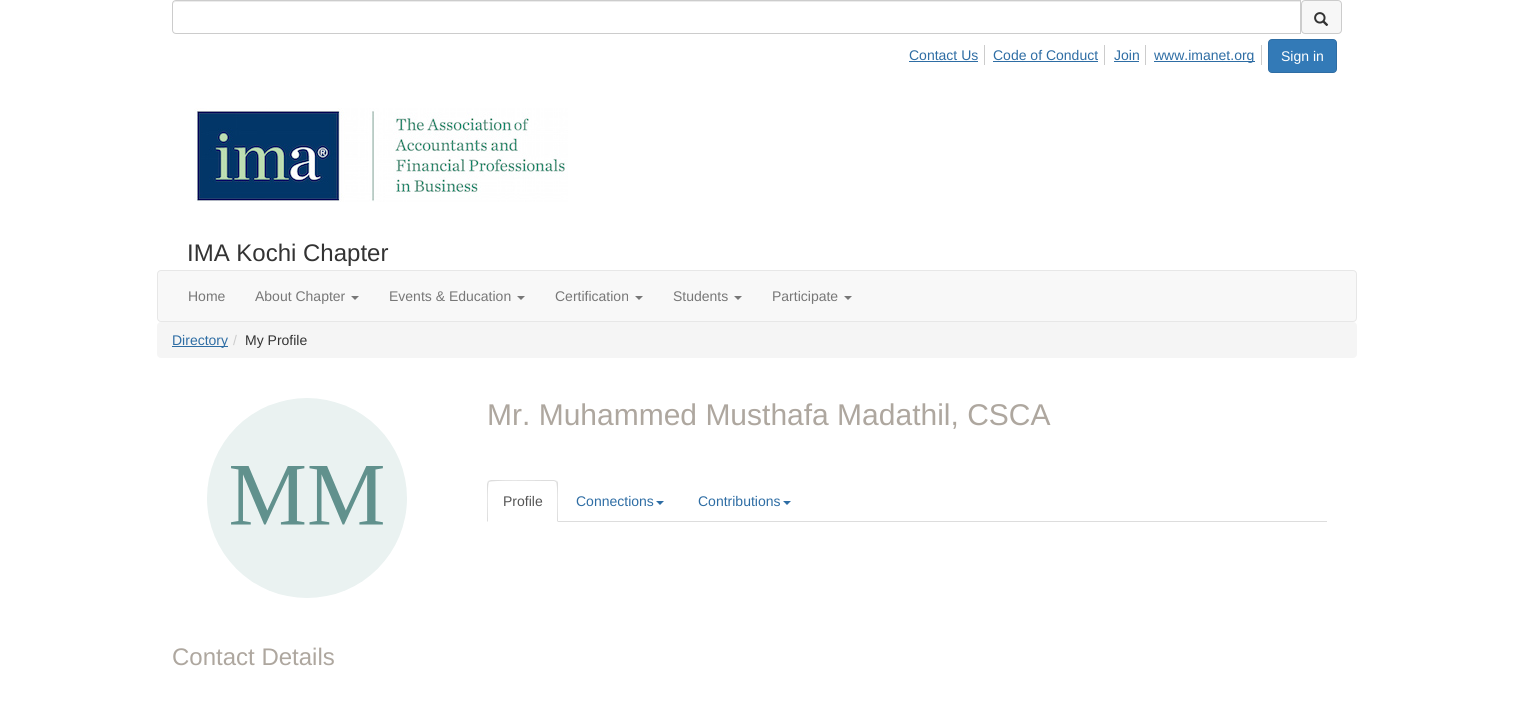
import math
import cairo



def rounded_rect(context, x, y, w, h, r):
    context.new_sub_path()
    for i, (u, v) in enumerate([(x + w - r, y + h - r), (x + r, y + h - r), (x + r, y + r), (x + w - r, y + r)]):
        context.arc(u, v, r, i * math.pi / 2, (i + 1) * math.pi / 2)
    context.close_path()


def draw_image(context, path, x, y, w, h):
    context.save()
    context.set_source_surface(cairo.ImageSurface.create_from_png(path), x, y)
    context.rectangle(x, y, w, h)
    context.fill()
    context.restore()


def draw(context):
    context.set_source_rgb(1, 1, 1)
    context.paint()
    context.set_source_rgb(236 / 255, 236 / 255, 236 / 255)
    context.new_path()
    context.move_to(176, 2)
    context.line_to(1300, 2)
    context.line_to(1300, 1)
    context.line_to(176, 1)
    context.curve_to(174, 1, 173, 3, 173, 5)
    context.curve_to(173, 3, 174, 2, 176, 2)
    context.close_path()
    context.fill()
    context.new_path()
    context.move_to(176, 0.5)
    context.line_to(1300.5, 0.5)
    context.line_to(1300.5, 33.5)
    context.line_to(176, 33.5)
    context.curve_to(174, 33.5, 172.5, 32, 172.5, 30)
    context.line_to(172.5, 4)
    context.curve_to(172.5, 2, 174, 0.5, 176, 0.5)
    context.close_path()
    context.set_source_rgb(204 / 255, 204 / 255, 204 / 255)
    context.set_line_width(1)
    context.stroke()
    context.set_source_rgb(247 / 255, 247 / 255, 247 / 255)
    rounded_rect(context, 1301.5, 0.5, 40, 33, 3.5)
    context.fill_preserve()
    context.set_source_rgb(204 / 255, 204 / 255, 204 / 255)
    context.stroke()
    draw_image(context, "images/1.png", 1314, 12, 15, 14)
    context.rectangle(984, 45, 1, 20)
    context.fill()
    context.set_source_rgb(46 / 255, 109 / 255, 164 / 255)
    context.rectangle(909, 61, 69, 1)
    context.fill()
    context.set_source_rgb(204 / 255, 204 / 255, 204 / 255)
    context.rectangle(1104, 45, 1, 20)
    context.fill()
    context.set_source_rgb(46 / 255, 109 / 255, 164 / 255)
    context.rectangle(993, 61, 105, 1)
    context.fill()
    context.set_source_rgb(204 / 255, 204 / 255, 204 / 255)
    context.rectangle(1145, 45, 1, 20)
    context.fill()
    context.set_source_rgb(46 / 255, 109 / 255, 164 / 255)
    context.rectangle(1114, 61, 25, 1)
    context.fill()
    context.set_source_rgb(204 / 255, 204 / 255, 204 / 255)
    context.rectangle(1261, 45, 1, 20)
    context.fill()
    context.set_source_rgb(46 / 255, 109 / 255, 164 / 255)
    context.rectangle(1154, 61, 101, 1)
    context.fill()
    context.set_source_rgb(51 / 255, 122 / 255, 183 / 255)
    rounded_rect(context, 1268.5, 39.5, 68, 33, 3.5)
    context.fill_preserve()
    context.set_source_rgb(46 / 255, 109 / 255, 164 / 255)
    context.stroke()
    draw_image(context, "images/2.png", 194, 108, 374, 94)
    context.set_source_rgb(248 / 255, 248 / 255, 248 / 255)
    rounded_rect(context, 157.5, 270.5, 1199, 51, 3.5)
    context.fill_preserve()
    context.set_source_rgb(231 / 255, 231 / 255, 231 / 255)
    context.stroke()
    context.set_source_rgb(119 / 255, 119 / 255, 119 / 255)
    context.new_path()
    context.move_to(351, 296)
    context.line_to(359, 296)
    context.line_to(355, 300)
    context.close_path()
    context.fill()
    context.new_path()
    context.move_to(517, 296)
    context.line_to(525, 296)
    context.line_to(521, 300)
    context.close_path()
    context.fill()
    context.new_path()
    context.move_to(635, 296)
    context.line_to(643, 296)
    context.line_to(639, 300)
    context.close_path()
    context.fill()
    context.new_path()
    context.move_to(734, 296)
    context.line_to(742, 296)
    context.line_to(738, 300)
    context.close_path()
    context.fill()
    context.new_path()
    context.move_to(844, 296)
    context.line_to(852, 296)
    context.line_to(848, 300)
    context.close_path()
    context.fill()
    context.set_source_rgb(245 / 255, 245 / 255, 245 / 255)
    rounded_rect(context, 157, 322, 1200, 36, 4)
    context.fill()
    context.set_source_rgb(46 / 255, 109 / 255, 164 / 255)
    context.rectangle(172, 346, 56, 1)
    context.fill()
    context.set_source_rgb(221 / 255, 221 / 255, 221 / 255)
    context.rectangle(558, 521, 769, 1)
    context.fill()
    context.new_path()
    context.move_to(491, 480)
    context.line_to(488, 481)
    context.line_to(489, 482)
    context.curve_to(491, 480, 537, 481, 544, 481)
    context.line_to(554, 481)
    context.line_to(556, 482)
    context.line_to(557, 481)
    context.line_to(554, 480)
    context.close_path()
    context.fill()
    context.new_path()
    context.move_to(558, 522)
    context.line_to(558, 484)
    context.curve_to(558, 483, 558, 482, 557, 481)
    context.line_to(556, 482)
    context.curve_to(558, 484, 557, 516, 557, 521)
    context.close_path()
    context.fill()
    context.new_path()
    context.move_to(487, 522)
    context.line_to(488, 521)
    context.curve_to(488, 516, 487, 484, 489, 482)
    context.line_to(488, 481)
    context.line_to(487, 484)
    context.close_path()
    context.fill()
    context.set_source_rgb(46 / 255, 109 / 255, 164 / 255)
    context.new_path()
    context.move_to(656, 501)
    context.line_to(664, 501)
    context.line_to(660, 505)
    context.close_path()
    context.fill()
    context.new_path()
    context.move_to(783, 501)
    context.line_to(791, 501)
    context.line_to(787, 505)
    context.close_path()
    context.fill()
    draw_image(context, "images/3.png", 207, 398, 200, 200)
    context.select_font_face("Liberation Sans")
    context.set_font_size(14)
    context.move_to(909, 60)
    context.show_text("Contact Us")
    context.move_to(993, 60)
    context.show_text("Code of Conduct")
    context.move_to(1114, 60)
    context.show_text("Join")
    context.move_to(1154, 60)
    context.show_text("www.imanet.org")
    context.set_source_rgb(1, 1, 1)
    context.move_to(1281, 61)
    context.show_text("Sign in")
    context.set_font_size(24)
    context.set_source_rgb(51 / 255, 51 / 255, 51 / 255)
    context.move_to(187, 261)
    context.show_text("IMA Kochi Chapter")
    context.set_font_size(14)
    context.set_source_rgb(119 / 255, 119 / 255, 119 / 255)
    context.move_to(188, 301)
    context.show_text("Home")
    context.move_to(255, 301)
    context.show_text("About Chapter")
    context.move_to(389, 301)
    context.show_text("Events & Education")
    context.move_to(555, 301)
    context.show_text("Certification")
    context.move_to(673, 301)
    context.show_text("Students")
    context.move_to(772, 301)
    context.show_text("Participate")
    context.set_source_rgb(46 / 255, 109 / 255, 164 / 255)
    context.move_to(172, 345)
    context.show_text("Directory")
    context.set_source_rgb(204 / 255, 204 / 255, 204 / 255)
    context.move_to(233, 345)
    context.show_text("/")
    context.set_source_rgb(51 / 255, 51 / 255, 51 / 255)
    context.move_to(245, 345)
    context.show_text("My Profile")
    context.set_font_size(30)
    context.set_source_rgb(174 / 255, 167 / 255, 159 / 255)
    context.move_to(487, 425)
    context.show_text("Mr. Muhammed Musthafa Madathil, CSCA")
    context.set_font_size(14)
    context.set_source_rgb(85 / 255, 85 / 255, 85 / 255)
    context.move_to(503, 506)
    context.show_text("Profile")
    context.set_source_rgb(46 / 255, 109 / 255, 164 / 255)
    context.move_to(576, 506)
    context.show_text("Connections")
    context.move_to(698, 506)
    context.show_text("Contributions")
    context.set_font_size(24)
    context.set_source_rgb(174 / 255, 167 / 255, 159 / 255)
    context.move_to(172, 665)
    context.show_text("Contact Details")


surface = cairo.ImageSurface(cairo.Format.RGB24, 1513, 702)
context = cairo.Context(surface)
options = cairo.FontOptions()
options.set_hint_metrics(cairo.HintMetrics.OFF)
options.set_hint_style(cairo.HintStyle.NONE)
context.set_font_options(options)
context.set_miter_limit(4)
draw(context)
surface.write_to_png("out.png")
